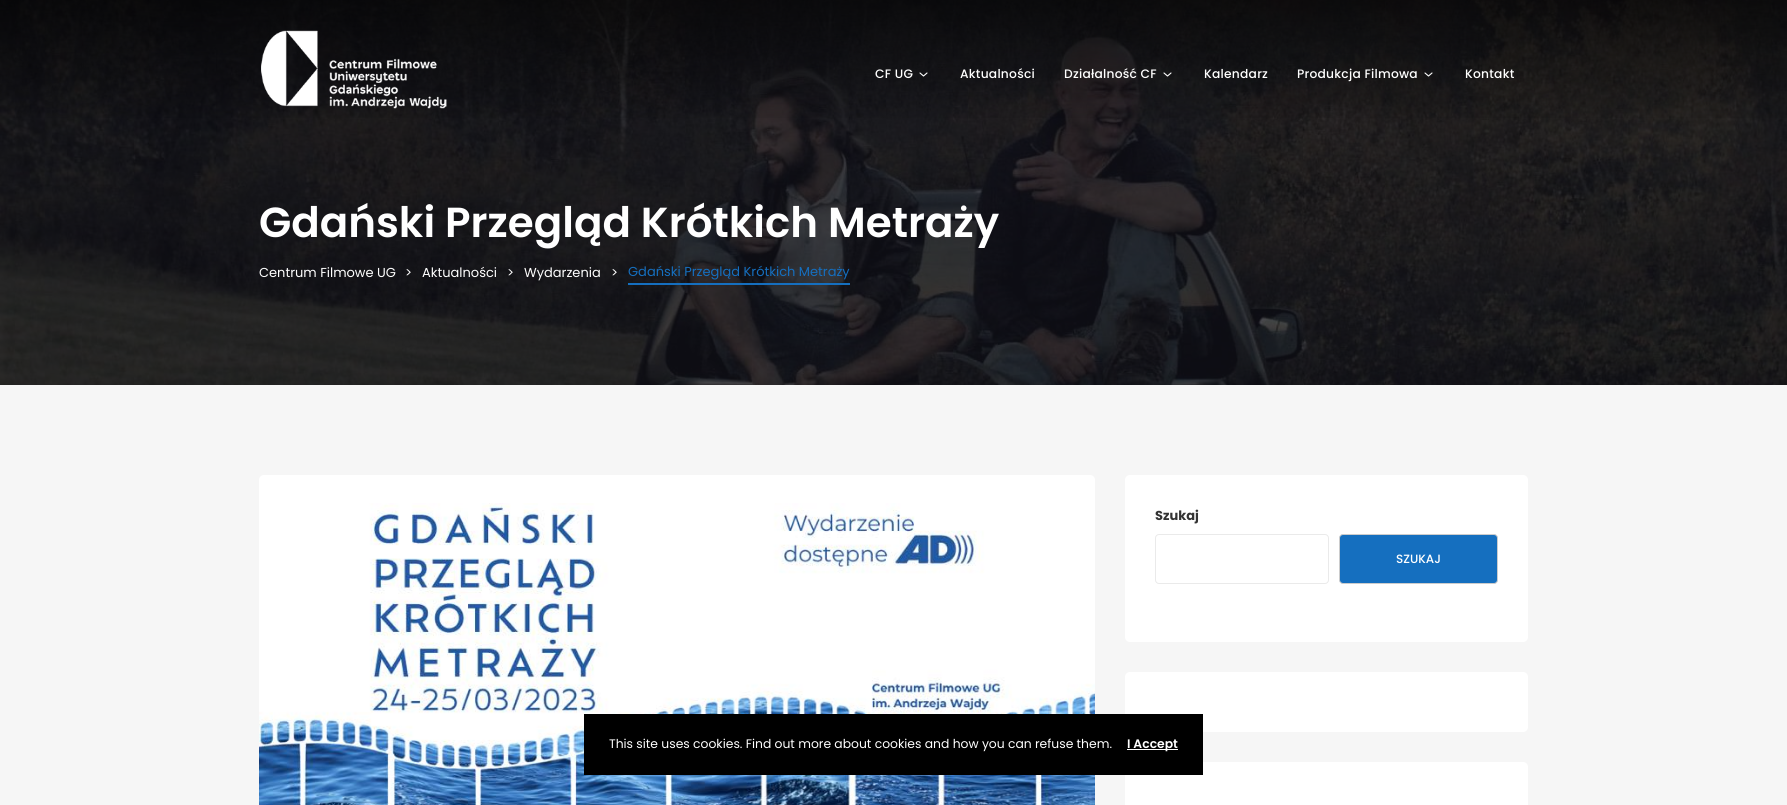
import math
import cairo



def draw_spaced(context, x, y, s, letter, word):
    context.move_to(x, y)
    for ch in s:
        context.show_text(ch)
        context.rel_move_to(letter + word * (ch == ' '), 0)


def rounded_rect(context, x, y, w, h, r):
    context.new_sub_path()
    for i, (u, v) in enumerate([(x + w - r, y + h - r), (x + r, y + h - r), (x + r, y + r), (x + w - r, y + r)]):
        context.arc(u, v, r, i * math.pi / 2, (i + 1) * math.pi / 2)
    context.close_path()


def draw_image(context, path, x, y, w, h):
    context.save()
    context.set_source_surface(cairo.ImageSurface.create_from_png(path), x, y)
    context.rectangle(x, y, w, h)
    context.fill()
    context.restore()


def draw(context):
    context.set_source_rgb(246 / 255, 246 / 255, 246 / 255)
    context.paint()
    context.set_source_rgb(18 / 255, 18 / 255, 25 / 255)
    context.rectangle(0, 0, 1787, 385)
    context.fill()
    draw_image(context, "images/2.png", 0, 0, 1787, 385)
    gradient = cairo.LinearGradient(894, 0, 894, 129)
    gradient.add_color_stop_rgba(0, 0, 0, 0, 0.6)
    gradient.add_color_stop_rgba(1, 0, 0, 0, 0)
    context.set_source(gradient)
    context.rectangle(0, 0, 1787, 118)
    context.fill()
    draw_image(context, "images/1.png", 261, 30, 186, 79)
    context.new_path()
    context.move_to(920, 73)
    context.line_to(923.5, 76)
    context.line_to(927, 73)
    context.set_source_rgb(1, 1, 1)
    context.set_line_width(1.1)
    context.set_line_cap(cairo.LineCap.ROUND)
    context.set_line_join(cairo.LineJoin.ROUND)
    context.stroke()
    context.new_path()
    context.move_to(1164, 73)
    context.line_to(1167.5, 76)
    context.line_to(1171, 73)
    context.stroke()
    context.new_path()
    context.move_to(1425, 73)
    context.line_to(1428.5, 76)
    context.line_to(1432, 73)
    context.stroke()
    context.set_source_rgb(21 / 255, 111 / 255, 191 / 255)
    context.rectangle(628, 283, 222, 2)
    context.fill()
    context.set_source_rgb(1, 1, 1)
    rounded_rect(context, 259, 475, 836, 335, 5)
    context.fill()
    draw_image(context, "images/3.png", 259, 503, 836, 302)
    rounded_rect(context, 1125, 475, 403, 167, 5)
    context.fill()
    rounded_rect(context, 1155.5, 534.5, 173, 49, 3.5)
    context.set_source_rgb(234 / 255, 234 / 255, 234 / 255)
    context.set_line_width(1)
    context.set_line_cap(cairo.LineCap.BUTT)
    context.set_line_join(cairo.LineJoin.MITER)
    context.stroke()
    context.set_source_rgb(21 / 255, 111 / 255, 191 / 255)
    rounded_rect(context, 1339.5, 534.5, 158, 49, 3.5)
    context.fill_preserve()
    context.set_source_rgb(204 / 255, 204 / 255, 204 / 255)
    context.stroke()
    context.set_source_rgb(1, 1, 1)
    rounded_rect(context, 1125, 672, 403, 60, 5)
    context.fill()
    rounded_rect(context, 1125, 762, 403, 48, 5)
    context.fill()
    context.set_source_rgb(0, 0, 0)
    context.rectangle(584, 714, 619, 61)
    context.fill()
    context.set_source_rgb(1, 1, 1)
    context.rectangle(1127, 749, 51, 1)
    context.fill()
    context.select_font_face("Poppins Medium")
    context.set_font_size(12.25)
    draw_spaced(context, 875, 78, "CF UG", 0.25, 0)
    draw_spaced(context, 960, 78, "Aktualności", 0.25, 0)
    draw_spaced(context, 1064, 78, "Działalność CF", 0.25, 0)
    draw_spaced(context, 1204, 78, "Kalendarz", 0.25, 0)
    draw_spaced(context, 1297, 78, "Produkcja Filmowa", 0.25, 0)
    draw_spaced(context, 1465, 78, "Kontakt", 0.25, 0)
    context.select_font_face("Poppins SemiBold")
    context.set_font_size(42)
    context.move_to(259, 237)
    context.show_text("Gdański Przegląd Krótkich Metraży")
    context.select_font_face("Poppins")
    context.set_font_size(13)
    context.move_to(259, 277)
    context.show_text("Centrum Filmowe UG")
    context.move_to(405, 277)
    context.show_text(">")
    context.move_to(422, 277)
    context.show_text("Aktualności")
    context.move_to(507, 277)
    context.show_text(">")
    context.move_to(524, 277)
    context.show_text("Wydarzenia")
    context.move_to(611, 277)
    context.show_text(">")
    context.set_source_rgb(21 / 255, 111 / 255, 191 / 255)
    context.move_to(628, 276)
    context.show_text("Gdański Przegląd Krótkich Metraży")
    context.select_font_face("Poppins", cairo.FontSlant.NORMAL, cairo.FontWeight.BOLD)
    context.set_source_rgb(51 / 255, 51 / 255, 51 / 255)
    context.move_to(1155, 520)
    context.show_text("Szukaj")
    context.select_font_face("Poppins Medium")
    context.set_font_size(12)
    context.set_source_rgb(1, 1, 1)
    context.move_to(1396, 563)
    context.show_text("SZUKAJ")
    context.select_font_face("Poppins")
    context.set_font_size(12.35)
    context.move_to(609, 748)
    context.show_text("This site uses cookies. Find out more about cookies and how you can refuse them.")
    context.select_font_face("Poppins SemiBold")
    context.move_to(1127, 748)
    context.show_text("I Accept")


surface = cairo.ImageSurface(cairo.Format.RGB24, 1787, 805)
context = cairo.Context(surface)
options = cairo.FontOptions()
options.set_hint_metrics(cairo.HintMetrics.OFF)
options.set_hint_style(cairo.HintStyle.NONE)
context.set_font_options(options)
context.set_miter_limit(4)
draw(context)
surface.write_to_png("out.png")
